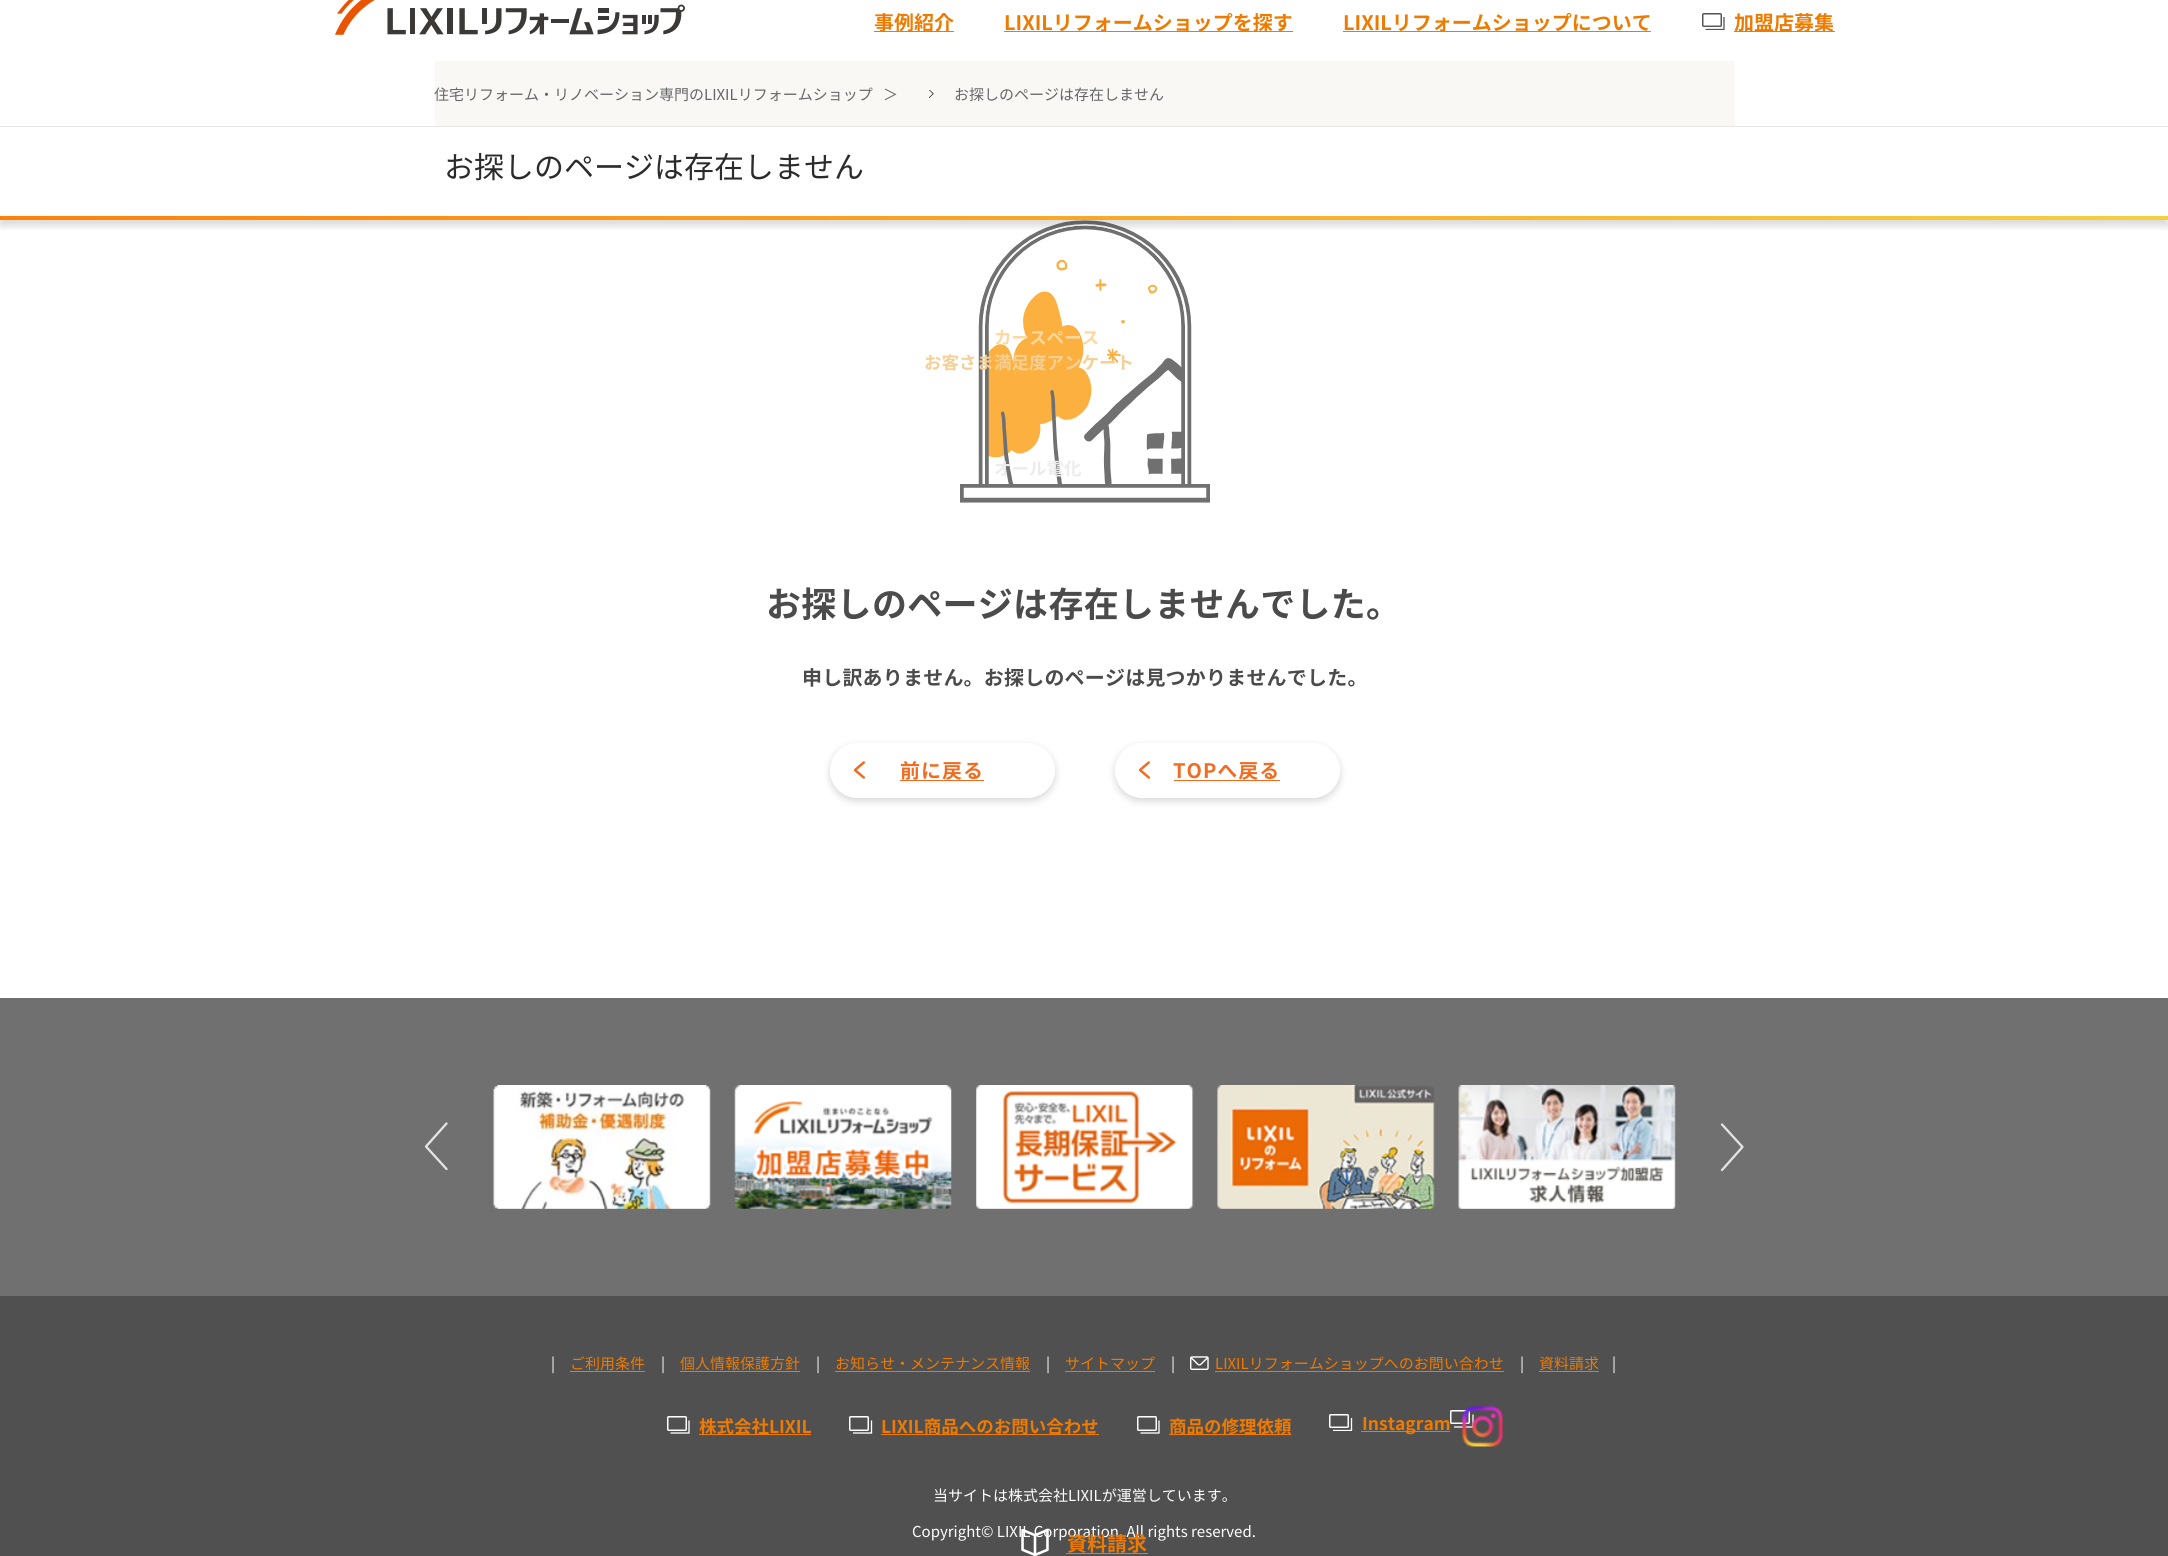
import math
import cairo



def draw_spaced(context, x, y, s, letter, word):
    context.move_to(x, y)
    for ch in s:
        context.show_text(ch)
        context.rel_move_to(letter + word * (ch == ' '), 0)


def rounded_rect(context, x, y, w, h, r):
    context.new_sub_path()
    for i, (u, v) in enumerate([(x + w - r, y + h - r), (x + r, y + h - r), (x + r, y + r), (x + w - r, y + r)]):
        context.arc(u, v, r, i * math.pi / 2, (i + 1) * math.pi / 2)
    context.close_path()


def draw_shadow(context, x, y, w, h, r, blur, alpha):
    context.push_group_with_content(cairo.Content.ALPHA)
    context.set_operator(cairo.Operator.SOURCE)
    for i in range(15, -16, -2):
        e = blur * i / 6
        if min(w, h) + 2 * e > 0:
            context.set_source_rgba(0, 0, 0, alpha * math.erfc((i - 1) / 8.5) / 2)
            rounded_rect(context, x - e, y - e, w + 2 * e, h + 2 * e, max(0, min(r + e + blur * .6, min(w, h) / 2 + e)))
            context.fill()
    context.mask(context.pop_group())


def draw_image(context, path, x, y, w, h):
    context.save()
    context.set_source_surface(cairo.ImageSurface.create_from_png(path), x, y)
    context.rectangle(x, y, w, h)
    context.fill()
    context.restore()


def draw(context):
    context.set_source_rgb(1, 1, 1)
    context.paint()
    context.set_source_rgb(249 / 255, 248 / 255, 245 / 255)
    context.rectangle(435, 61, 1300, 65)
    context.fill()
    draw_image(context, "images/1.png", 929, 90, 5, 8)
    draw_image(context, "images/2.png", 335, 0, 350, 35)
    context.set_source_rgb(239 / 255, 122 / 255, 0)
    context.rectangle(1343, 31, 308, 1)
    context.fill()
    context.rectangle(874, 31, 80, 1)
    context.fill()
    context.rectangle(1004, 31, 289, 1)
    context.fill()
    rounded_rect(context, 1702.75, 13.75, 18.5, 12.5, 0.75)
    context.set_source_rgb(84 / 255, 88 / 255, 90 / 255)
    context.set_line_width(1.5)
    context.stroke()
    context.save()
    context.rectangle(1701, 13, 24, 17)
    context.clip()
    context.new_path()
    context.move_to(1724, 17)
    context.line_to(1724, 29.5)
    context.line_to(1705.5, 29.5)
    context.set_line_width(1.3)
    context.stroke()
    context.restore()
    context.set_source_rgb(239 / 255, 122 / 255, 0)
    context.rectangle(1734, 31, 101, 1)
    context.fill()
    draw_image(context, "images/3.png", 960, 220, 250, 283)
    context.save()
    context.rectangle(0, 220, 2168, 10)
    context.clip()
    context.set_source_rgb(0, 0, 0)
    draw_shadow(context, 0, 133, 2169, 93, 0, 4, 0.15)
    context.restore()
    context.set_source_rgb(233 / 255, 231 / 255, 231 / 255)
    context.rectangle(0, 126, 2168, 1)
    context.fill()
    gradient = cairo.LinearGradient(0, 218, 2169, 218)
    gradient.add_color_stop_rgba(0, 1, 128 / 255, 8 / 255, 1)
    gradient.add_color_stop_rgba(1, 244 / 255, 208 / 255, 63 / 255, 1)
    context.set_source(gradient)
    context.rectangle(0, 216, 2168, 4)
    context.fill()
    context.save()
    context.set_fill_rule(cairo.FillRule.EVEN_ODD)
    context.new_path()
    context.move_to(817, 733)
    context.line_to(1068, 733)
    context.line_to(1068, 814)
    context.line_to(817, 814)
    context.close_path()
    context.move_to(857.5, 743)
    context.line_to(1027.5, 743)
    context.curve_to(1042.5, 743, 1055, 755.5, 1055, 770.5)
    context.curve_to(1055, 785.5, 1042.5, 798, 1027.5, 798)
    context.line_to(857.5, 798)
    context.curve_to(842.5, 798, 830, 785.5, 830, 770.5)
    context.curve_to(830, 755.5, 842.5, 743, 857.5, 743)
    context.close_path()
    context.clip()
    context.set_source_rgb(0, 0, 0)
    draw_shadow(context, 830, 746, 225, 55, 27.5, 4, 0.16)
    context.restore()
    draw_image(context, "images/4.png", 854, 761, 11, 18)
    context.set_source_rgb(239 / 255, 109 / 255, 34 / 255)
    context.rectangle(900, 780, 84, 1)
    context.fill()
    context.save()
    context.set_fill_rule(cairo.FillRule.EVEN_ODD)
    context.new_path()
    context.move_to(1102, 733)
    context.line_to(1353, 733)
    context.line_to(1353, 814)
    context.line_to(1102, 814)
    context.close_path()
    context.move_to(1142.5, 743)
    context.line_to(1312.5, 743)
    context.curve_to(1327.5, 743, 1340, 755.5, 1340, 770.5)
    context.curve_to(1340, 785.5, 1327.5, 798, 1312.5, 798)
    context.line_to(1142.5, 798)
    context.curve_to(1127.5, 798, 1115, 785.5, 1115, 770.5)
    context.curve_to(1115, 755.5, 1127.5, 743, 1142.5, 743)
    context.close_path()
    context.clip()
    context.set_source_rgb(0, 0, 0)
    draw_shadow(context, 1115, 746, 225, 55, 27.5, 4, 0.16)
    context.restore()
    draw_image(context, "images/4.png", 1139, 761, 11, 18)
    context.rectangle(1174, 780, 106, 1)
    context.fill()
    context.set_source_rgb(112 / 255, 112 / 255, 112 / 255)
    context.rectangle(0, 998, 2168, 298)
    context.fill()
    context.new_path()
    context.move_to(446.5, 1169)
    context.line_to(426, 1146.5)
    context.line_to(446.5, 1123.5)
    context.set_source_rgb(228 / 255, 228 / 255, 228 / 255)
    context.set_line_width(2.3)
    context.set_line_cap(cairo.LineCap.ROUND)
    context.set_line_join(cairo.LineJoin.ROUND)
    context.stroke()
    draw_image(context, "images/5.png", 493, 1085, 218, 124)
    draw_image(context, "images/6.png", 734, 1085, 218, 124)
    draw_image(context, "images/7.png", 976, 1085, 218, 124)
    draw_image(context, "images/8.png", 1217, 1085, 218, 124)
    draw_image(context, "images/9.png", 1458, 1085, 218, 124)
    context.new_path()
    context.move_to(1722, 1124.5)
    context.line_to(1742.5, 1147)
    context.line_to(1722, 1170)
    context.stroke()
    context.set_source_rgb(80 / 255, 80 / 255, 80 / 255)
    context.rectangle(0, 1296, 2168, 260)
    context.fill()
    context.set_source_rgb(239 / 255, 122 / 255, 0)
    context.rectangle(570, 1371, 75, 1)
    context.fill()
    context.rectangle(680, 1371, 120, 1)
    context.fill()
    context.rectangle(835, 1371, 195, 1)
    context.fill()
    context.rectangle(1065, 1371, 90, 1)
    context.fill()
    draw_image(context, "images/10.png", 1190, 1356, 19, 14)
    context.rectangle(1215, 1371, 289, 1)
    context.fill()
    context.rectangle(1539, 1371, 60, 1)
    context.fill()
    rounded_rect(context, 667.75, 1416.75, 18.5, 13.5, 0.75)
    context.set_source_rgb(1, 1, 1)
    context.set_line_width(1.5)
    context.set_line_cap(cairo.LineCap.BUTT)
    context.set_line_join(cairo.LineJoin.MITER)
    context.stroke()
    context.new_path()
    context.move_to(689, 1420.5)
    context.line_to(689, 1433)
    context.line_to(670.5, 1433)
    context.set_line_width(1.3)
    context.stroke()
    context.set_source_rgb(239 / 255, 122 / 255, 0)
    context.rectangle(699, 1434, 112, 1)
    context.fill()
    rounded_rect(context, 849.75, 1416.75, 18.5, 13.5, 0.75)
    context.set_source_rgb(1, 1, 1)
    context.set_line_width(1.5)
    context.stroke()
    context.new_path()
    context.move_to(871.5, 1420.5)
    context.line_to(871.5, 1433)
    context.line_to(853, 1433)
    context.set_line_width(1.3)
    context.stroke()
    context.set_source_rgb(239 / 255, 122 / 255, 0)
    context.rectangle(881, 1434, 218, 1)
    context.fill()
    rounded_rect(context, 1137.75, 1416.75, 18.5, 13.5, 0.75)
    context.set_source_rgb(1, 1, 1)
    context.set_line_width(1.5)
    context.stroke()
    context.new_path()
    context.move_to(1159, 1420.5)
    context.line_to(1159, 1433)
    context.line_to(1140.5, 1433)
    context.set_line_width(1.3)
    context.stroke()
    context.set_source_rgb(239 / 255, 122 / 255, 0)
    context.rectangle(1169, 1434, 122, 1)
    context.fill()
    rounded_rect(context, 1329.75, 1414.75, 18.5, 12.5, 0.75)
    context.set_source_rgb(1, 1, 1)
    context.set_line_width(1.5)
    context.stroke()
    context.save()
    context.rectangle(1329, 1414, 24, 17)
    context.clip()
    context.new_path()
    context.move_to(1351.5, 1418)
    context.line_to(1351.5, 1430.5)
    context.line_to(1333, 1430.5)
    context.set_line_width(1.3)
    context.stroke()
    context.restore()
    rounded_rect(context, 1450.75, 1410.75, 18.5, 12.5, 0.75)
    context.stroke()
    context.new_path()
    context.move_to(1473, 1414.5)
    context.line_to(1473, 1427)
    context.line_to(1454, 1427)
    context.set_line_width(1.3)
    context.stroke()
    context.set_source_rgb(239 / 255, 122 / 255, 0)
    context.rectangle(1361, 1431, 89, 1)
    context.fill()
    draw_image(context, "images/11.png", 1462, 1406, 41, 41)
    context.rectangle(1066, 1553, 82, 1)
    context.fill()
    context.select_font_face("Noto Sans JP")
    context.set_font_size(15)
    context.set_source_rgb(102 / 255, 102 / 255, 102 / 255)
    context.move_to(434, 100)
    context.show_text("住宅リフォーム・リノベーション専門のLIXILリフォームショップ")
    context.move_to(883, 100)
    context.show_text("＞")
    context.move_to(954, 100)
    context.show_text("お探しのページは存在しません")
    context.select_font_face("Noto Sans JP", cairo.FontSlant.NORMAL, cairo.FontWeight.BOLD)
    context.set_font_size(20)
    context.set_source_rgb(239 / 255, 122 / 255, 0)
    context.move_to(1343, 30)
    context.show_text("LIXILリフォームショップについて")
    context.set_font_size(17.5)
    context.set_source_rgb(246 / 255, 207 / 255, 149 / 255)
    context.move_to(924, 369)
    context.show_text("お客さま満足度アンケート")
    context.set_font_size(20)
    context.set_source_rgb(239 / 255, 122 / 255, 0)
    context.move_to(874, 30)
    context.show_text("事例紹介")
    context.set_font_size(17.5)
    context.set_source_rgb(253 / 255, 216 / 255, 160 / 255)
    context.move_to(994, 344)
    context.show_text("カースペース")
    context.set_source_rgb(236 / 255, 236 / 255, 236 / 255)
    context.move_to(994, 475)
    context.show_text("オール電化")
    context.set_font_size(20)
    context.set_source_rgb(239 / 255, 122 / 255, 0)
    context.move_to(1004, 30)
    context.show_text("LIXILリフォームショップを探す")
    context.move_to(1734, 30)
    context.show_text("加盟店募集")
    context.select_font_face("Noto Sans JP")
    context.set_font_size(30)
    context.set_source_rgb(43 / 255, 43 / 255, 43 / 255)
    context.move_to(444, 178)
    context.show_text("お探しのページは存在しません")
    context.select_font_face("Noto Sans JP", cairo.FontSlant.NORMAL, cairo.FontWeight.BOLD)
    context.set_font_size(35)
    context.set_source_rgb(75 / 255, 75 / 255, 75 / 255)
    draw_spaced(context, 766, 617, "お探しのページは存在しませんでした。", 0.3, 0)
    context.set_font_size(20)
    draw_spaced(context, 802, 685, "申し訳ありません。お探しのページは見つかりませんでした。", 0.2, 0)
    context.set_source_rgb(239 / 255, 109 / 255, 34 / 255)
    draw_spaced(context, 900, 778, "前に戻る", 1, 0)
    draw_spaced(context, 1173, 778, "TOPへ戻る", 1, 0)
    context.select_font_face("Noto Sans JP")
    context.set_font_size(15)
    context.set_source_rgb(1, 1, 1)
    context.move_to(551, 1369)
    context.show_text("|")
    context.set_source_rgb(239 / 255, 122 / 255, 0)
    context.move_to(570, 1369)
    context.show_text("ご利用条件")
    context.set_source_rgb(1, 1, 1)
    context.move_to(661, 1369)
    context.show_text("|")
    context.set_source_rgb(239 / 255, 122 / 255, 0)
    context.move_to(680, 1369)
    context.show_text("個人情報保護方針")
    context.set_source_rgb(1, 1, 1)
    context.move_to(816, 1369)
    context.show_text("|")
    context.set_source_rgb(239 / 255, 122 / 255, 0)
    context.move_to(835, 1369)
    context.show_text("お知らせ・メンテナンス情報")
    context.set_source_rgb(1, 1, 1)
    context.move_to(1046, 1369)
    context.show_text("|")
    context.set_source_rgb(239 / 255, 122 / 255, 0)
    context.move_to(1065, 1369)
    context.show_text("サイトマップ")
    context.set_source_rgb(1, 1, 1)
    context.move_to(1171, 1369)
    context.show_text("|")
    context.set_source_rgb(239 / 255, 122 / 255, 0)
    context.move_to(1215, 1369)
    context.show_text("LIXILリフォームショップへのお問い合わせ")
    context.set_source_rgb(1, 1, 1)
    context.move_to(1520, 1369)
    context.show_text("|")
    context.set_source_rgb(239 / 255, 122 / 255, 0)
    context.move_to(1539, 1369)
    context.show_text("資料請求")
    context.set_source_rgb(1, 1, 1)
    context.move_to(1612, 1369)
    context.show_text("|")
    context.select_font_face("Noto Sans JP", cairo.FontSlant.NORMAL, cairo.FontWeight.BOLD)
    context.set_font_size(17.5)
    context.set_source_rgb(239 / 255, 122 / 255, 0)
    context.move_to(699, 1433)
    context.show_text("株式会社LIXIL")
    context.move_to(881, 1433)
    context.show_text("LIXIL商品へのお問い合わせ")
    context.move_to(1169, 1433)
    context.show_text("商品の修理依頼")
    context.move_to(1362, 1430)
    context.show_text("Instagram")
    context.select_font_face("Noto Sans JP")
    context.set_font_size(15)
    context.set_source_rgb(1, 1, 1)
    context.move_to(933, 1501)
    context.show_text("当サイトは株式会社LIXILが運営しています。")
    context.move_to(912, 1537)
    context.show_text("Copyright© LIXIL Corporation. All rights reserved.")
    draw_image(context, "images/12.png", 1021, 1529, 28, 27)
    context.select_font_face("Noto Sans JP", cairo.FontSlant.NORMAL, cairo.FontWeight.BOLD)
    context.set_font_size(20)
    context.set_source_rgb(239 / 255, 122 / 255, 0)
    context.move_to(1067, 1551)
    context.show_text("資料請求")


surface = cairo.ImageSurface(cairo.Format.RGB24, 2168, 1556)
context = cairo.Context(surface)
options = cairo.FontOptions()
options.set_hint_metrics(cairo.HintMetrics.OFF)
options.set_hint_style(cairo.HintStyle.NONE)
context.set_font_options(options)
context.set_miter_limit(4)
draw(context)
surface.write_to_png("out.png")
